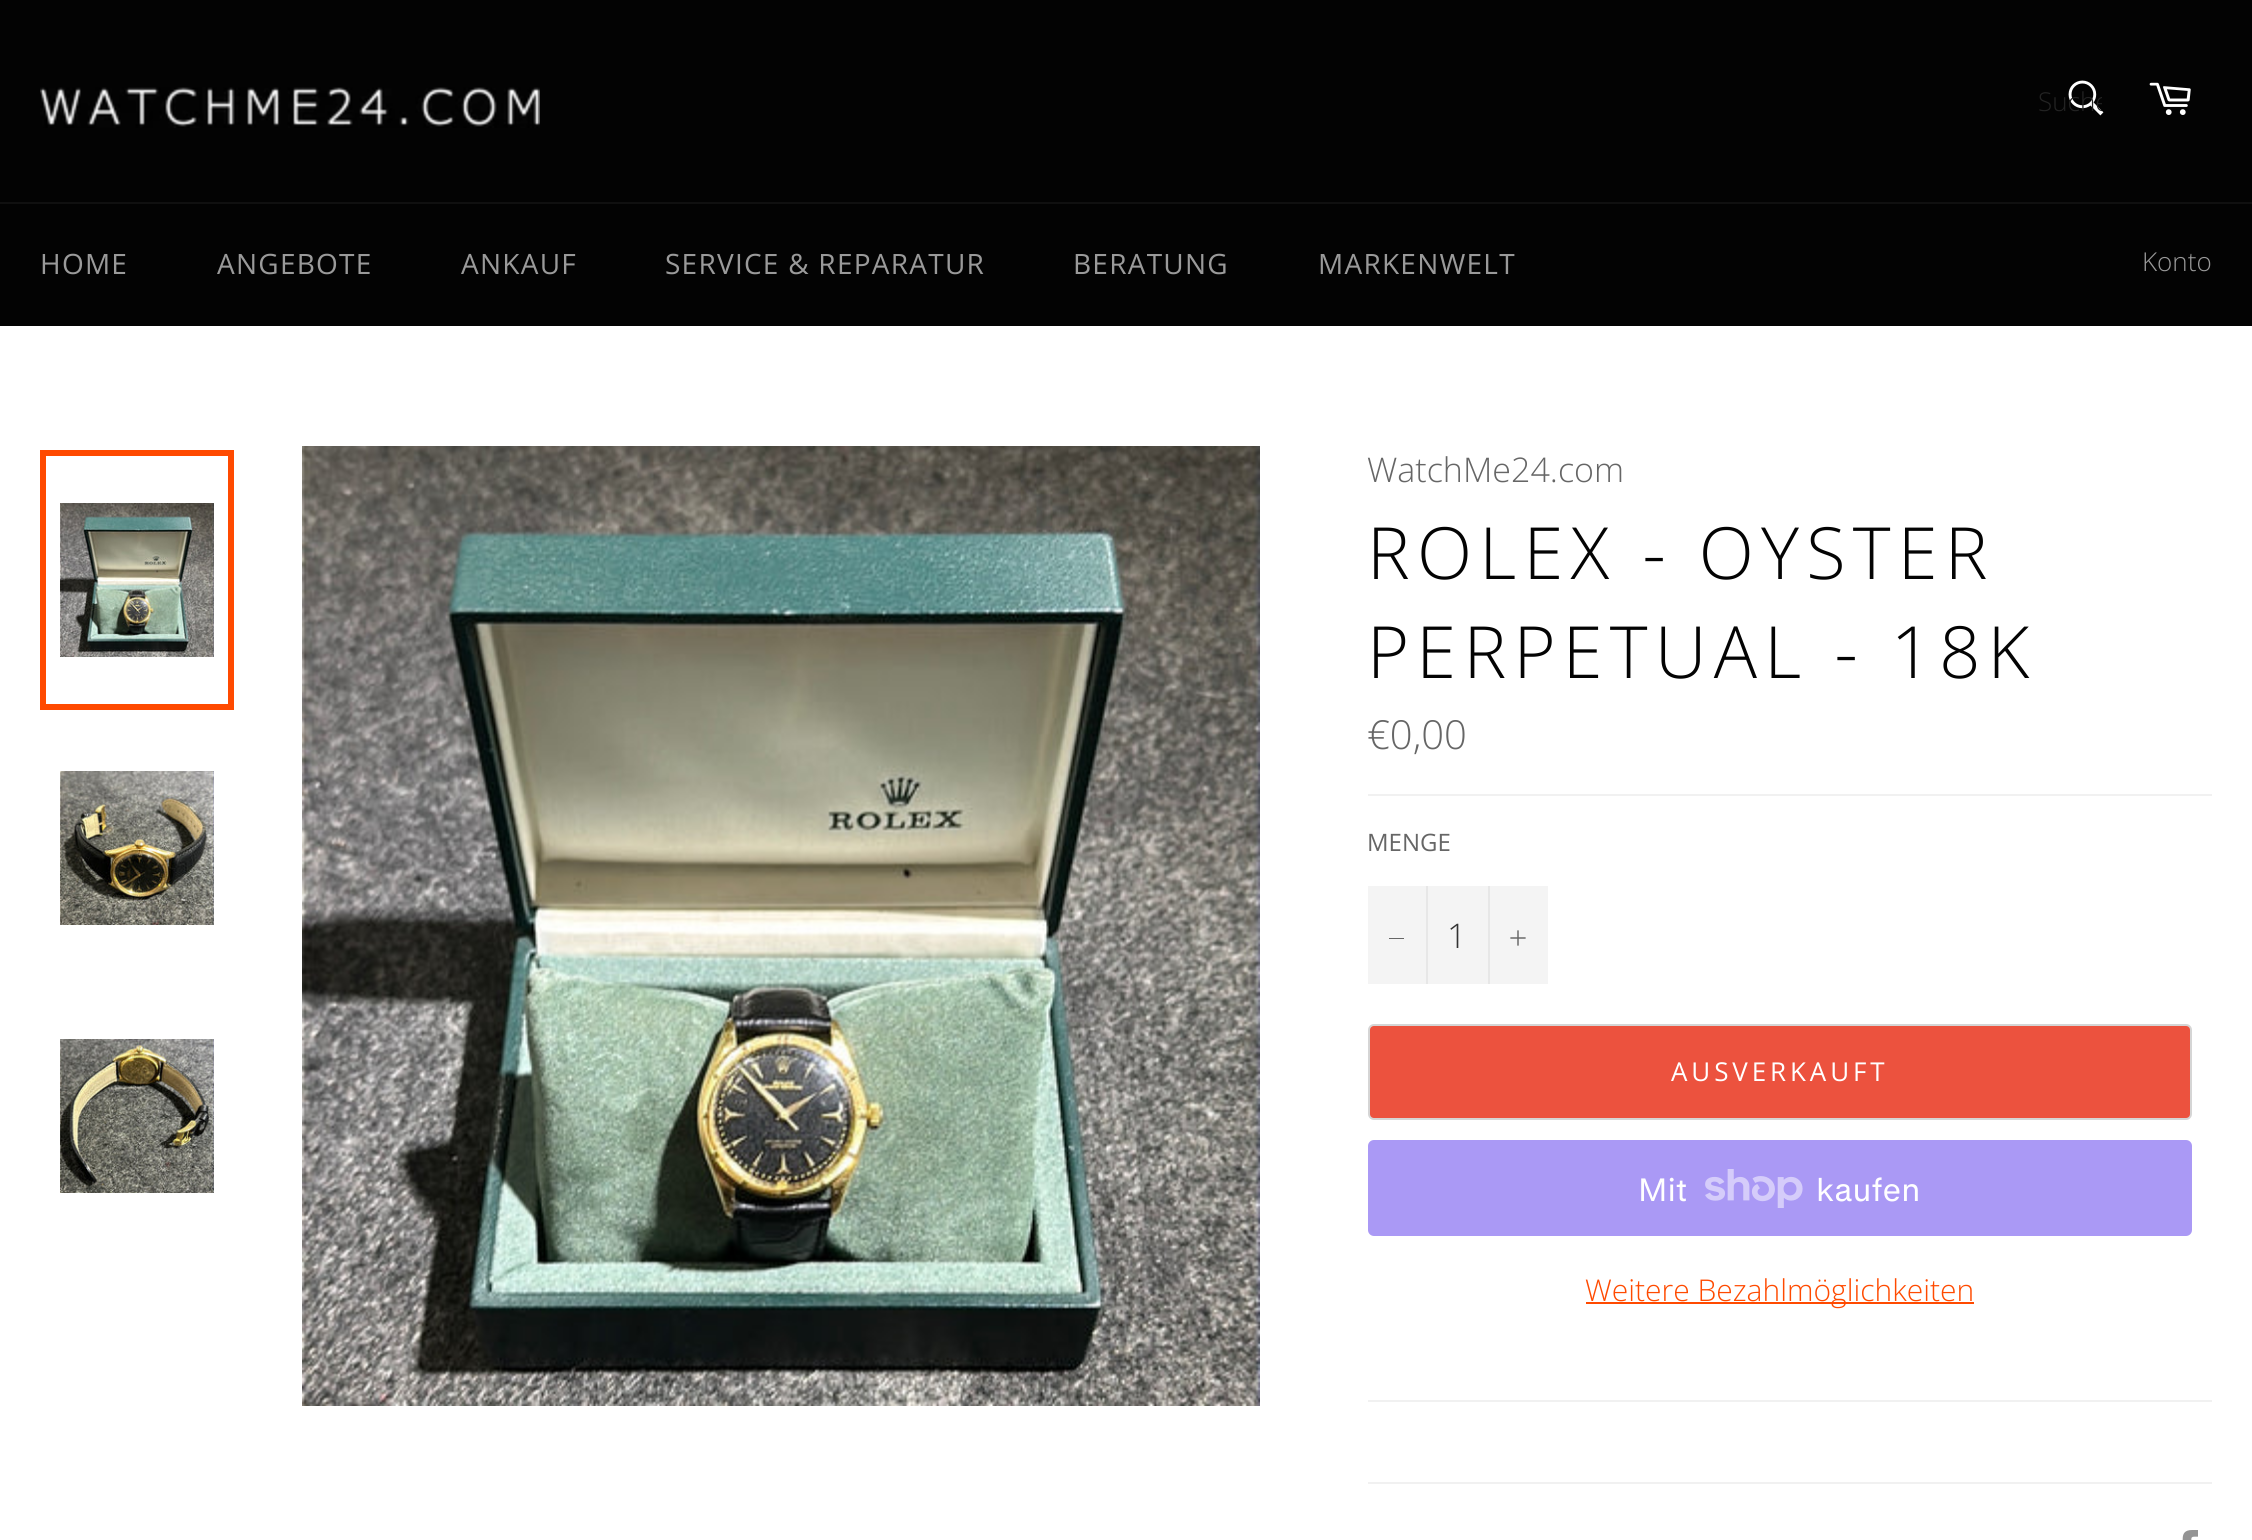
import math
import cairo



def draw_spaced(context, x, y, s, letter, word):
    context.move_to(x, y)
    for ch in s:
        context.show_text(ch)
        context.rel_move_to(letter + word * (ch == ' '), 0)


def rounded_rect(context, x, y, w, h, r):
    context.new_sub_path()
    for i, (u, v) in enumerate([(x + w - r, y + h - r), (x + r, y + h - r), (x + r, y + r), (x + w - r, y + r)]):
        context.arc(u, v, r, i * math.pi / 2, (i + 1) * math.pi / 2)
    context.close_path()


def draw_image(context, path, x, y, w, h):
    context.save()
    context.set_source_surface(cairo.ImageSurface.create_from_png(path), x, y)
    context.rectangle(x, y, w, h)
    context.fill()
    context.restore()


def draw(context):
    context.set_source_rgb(3 / 255, 3 / 255, 3 / 255)
    context.paint()
    draw_image(context, "images/1.png", 40, 87, 500, 41)
    draw_image(context, "images/2.png", 2068, 80, 36, 36)
    draw_image(context, "images/3.png", 2149, 82, 42, 33)
    context.set_source_rgb(16 / 255, 16 / 255, 16 / 255)
    context.rectangle(0, 202, 2252, 2)
    context.fill()
    context.set_source_rgb(1, 1, 1)
    context.rectangle(0, 326, 2252, 1214)
    context.fill()
    draw_image(context, "images/4.png", 60, 503, 154, 154)
    context.rectangle(43, 453, 188, 254)
    context.set_source_rgb(1, 74 / 255, 0)
    context.set_line_width(6)
    context.stroke()
    draw_image(context, "images/5.png", 60, 771, 154, 154)
    draw_image(context, "images/6.png", 60, 1039, 154, 154)
    draw_image(context, "images/7.png", 302, 446, 958, 960)
    context.set_source_rgb(241 / 255, 241 / 255, 241 / 255)
    context.rectangle(1368, 794, 844, 2)
    context.fill()
    context.set_source_rgb(244 / 255, 244 / 255, 244 / 255)
    context.rectangle(1368, 886, 180, 98)
    context.fill()
    context.set_source_rgb(231 / 255, 231 / 255, 231 / 255)
    context.rectangle(1426, 886, 2, 98)
    context.fill()
    context.set_source_rgb(102 / 255, 102 / 255, 102 / 255)
    context.rectangle(1389, 938, 15, 1)
    context.fill()
    context.set_source_rgb(231 / 255, 231 / 255, 231 / 255)
    context.rectangle(1488, 886, 2, 98)
    context.fill()
    draw_image(context, "images/8.png", 1510, 930, 16, 16)
    context.set_source_rgb(236 / 255, 82 / 255, 62 / 255)
    rounded_rect(context, 1369, 1025, 822, 94, 5)
    context.fill_preserve()
    context.set_source_rgb(213 / 255, 213 / 255, 213 / 255)
    context.set_line_width(2)
    context.stroke()
    context.set_source_rgb(170 / 255, 153 / 255, 245 / 255)
    rounded_rect(context, 1368, 1140, 824, 96, 6)
    context.fill()
    draw_image(context, "images/9.png", 1705, 1169, 98, 39)
    context.set_source_rgb(1, 74 / 255, 0)
    context.rectangle(1586, 1302, 388, 2)
    context.fill()
    context.set_source_rgb(241 / 255, 241 / 255, 241 / 255)
    context.rectangle(1368, 1400, 844, 2)
    context.fill()
    context.rectangle(1368, 1482, 844, 2)
    context.fill()
    draw_image(context, "images/10.png", 2182, 1530, 16, 10)
    context.save()
    context.rectangle(2038, 84, 64, 36)
    context.clip()
    context.select_font_face("Open Sans Light")
    context.set_font_size(26)
    context.set_source_rgb(35 / 255, 35 / 255, 35 / 255)
    context.move_to(2038, 111)
    context.show_text("Suche")
    context.restore()
    context.select_font_face("Open Sans")
    context.set_font_size(28)
    context.set_source_rgb(154 / 255, 154 / 255, 154 / 255)
    draw_spaced(context, 40, 274, "HOME", 1.25, 0)
    draw_spaced(context, 217, 274, "ANGEBOTE", 1.25, 0)
    draw_spaced(context, 461, 274, "ANKAUF", 1.25, 0)
    draw_spaced(context, 665, 274, "SERVICE & REPARATUR", 1.25, 0)
    draw_spaced(context, 1073, 274, "BERATUNG", 1.25, 0)
    draw_spaced(context, 1318, 274, "MARKENWELT", 1.25, 0)
    context.select_font_face("Open Sans Light")
    context.set_font_size(26)
    context.move_to(2142, 271)
    context.show_text("Konto")
    context.set_font_size(34)
    context.set_source_rgb(102 / 255, 102 / 255, 102 / 255)
    context.move_to(1367, 482)
    context.show_text("WatchMe24.com")
    context.set_font_size(72)
    context.set_source_rgb(3 / 255, 3 / 255, 3 / 255)
    draw_spaced(context, 1367, 579, "ROLEX - OYSTER", 7.25, 0)
    draw_spaced(context, 1367, 678, "PERPETUAL - 18K", 7.25, 0)
    context.set_font_size(40)
    context.set_source_rgb(102 / 255, 102 / 255, 102 / 255)
    context.move_to(1367, 749)
    context.show_text("€0,00")
    context.select_font_face("Open Sans")
    context.set_font_size(24)
    context.move_to(1367, 851)
    context.show_text("MENGE")
    context.select_font_face("Open Sans Light")
    context.set_font_size(34)
    context.set_source_rgb(51 / 255, 51 / 255, 51 / 255)
    context.move_to(1447, 948)
    context.show_text("1")
    context.select_font_face("Open Sans")
    context.set_font_size(26)
    context.set_source_rgb(1, 1, 1)
    draw_spaced(context, 1671, 1081, "AUSVERKAUFT", 3.9, 0)
    context.select_font_face("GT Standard")
    context.set_font_size(32)
    context.move_to(1638, 1201)
    context.show_text("Mit")
    context.move_to(1816, 1201)
    context.show_text("kaufen")
    context.select_font_face("Open Sans Light")
    context.set_font_size(30)
    context.set_source_rgb(1, 74 / 255, 0)
    context.move_to(1585, 1301)
    context.show_text("Weitere Bezahlmöglichkeiten")


surface = cairo.ImageSurface(cairo.Format.RGB24, 2252, 1540)
context = cairo.Context(surface)
options = cairo.FontOptions()
options.set_hint_metrics(cairo.HintMetrics.OFF)
options.set_hint_style(cairo.HintStyle.NONE)
context.set_font_options(options)
context.set_miter_limit(4)
draw(context)
surface.write_to_png("out.png")
